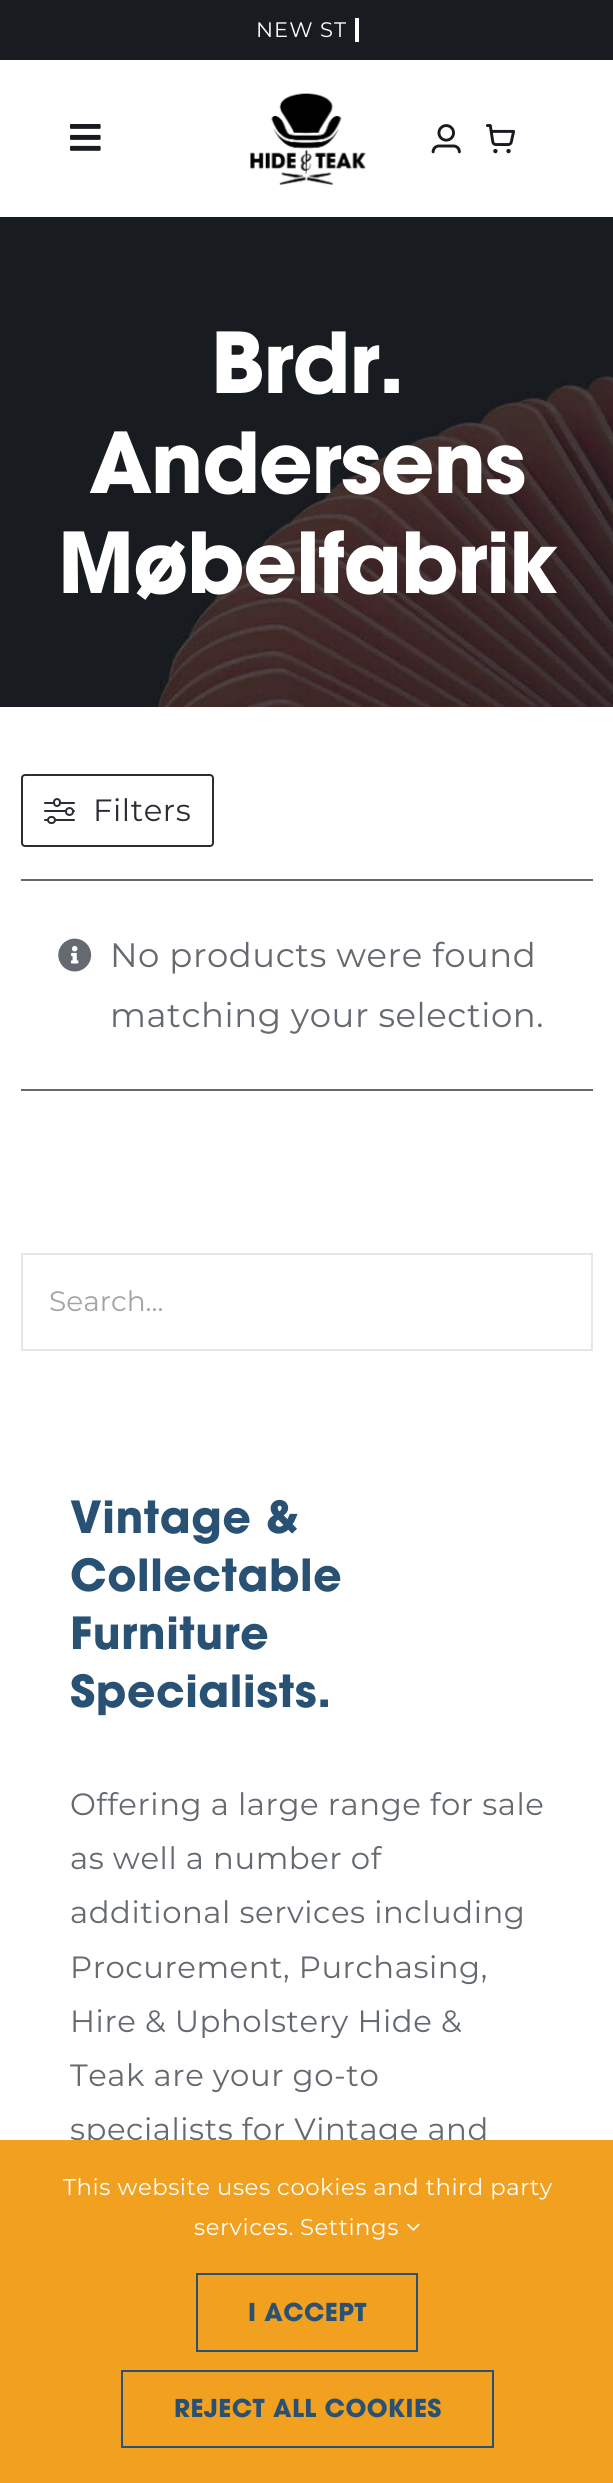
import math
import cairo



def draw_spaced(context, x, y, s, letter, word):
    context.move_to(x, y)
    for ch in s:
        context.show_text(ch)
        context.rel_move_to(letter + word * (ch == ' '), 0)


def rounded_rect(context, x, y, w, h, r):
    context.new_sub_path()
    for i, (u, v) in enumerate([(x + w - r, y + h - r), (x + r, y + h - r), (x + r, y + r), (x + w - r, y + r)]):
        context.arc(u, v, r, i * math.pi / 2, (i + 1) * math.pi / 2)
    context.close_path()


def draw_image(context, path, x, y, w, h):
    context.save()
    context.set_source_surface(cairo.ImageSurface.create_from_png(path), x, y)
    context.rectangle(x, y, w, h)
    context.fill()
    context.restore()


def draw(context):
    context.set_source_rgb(1, 1, 1)
    context.paint()
    context.set_source_rgb(24 / 255, 27 / 255, 32 / 255)
    context.rectangle(0, 0, 613, 60)
    context.fill()
    context.set_source_rgb(1, 1, 1)
    context.rectangle(355, 18, 4, 24)
    context.fill()
    draw_image(context, "images/1.png", 70, 124, 31, 27)
    draw_image(context, "images/2.png", 250, 93, 116, 92)
    draw_image(context, "images/3.png", 431, 124, 30, 30)
    draw_image(context, "images/4.png", 485, 124, 31, 30)
    context.set_source_rgb(24 / 255, 27 / 255, 32 / 255)
    context.rectangle(0, 217, 613, 490)
    context.fill()
    draw_image(context, "images/5.png", 154, 374, 459, 333)
    rounded_rect(context, 22, 775, 191, 71, 3)
    context.set_source_rgb(44 / 255, 45 / 255, 51 / 255)
    context.stroke()
    rounded_rect(context, 44, 802, 31, 2, 1)
    context.fill()
    context.set_source_rgb(1, 1, 1)
    rounded_rect(context, 54, 799, 6, 7, 3)
    context.fill_preserve()
    context.set_source_rgb(44 / 255, 45 / 255, 51 / 255)
    context.stroke()
    rounded_rect(context, 44, 810, 31, 2, 1)
    context.fill()
    context.set_source_rgb(1, 1, 1)
    context.arc(69.5, 811.5, 3.5, 0, 2 * math.pi)
    context.fill_preserve()
    context.set_source_rgb(44 / 255, 45 / 255, 51 / 255)
    context.stroke()
    rounded_rect(context, 44, 819, 31, 2, 1)
    context.fill()
    context.set_source_rgb(1, 1, 1)
    rounded_rect(context, 48, 817, 7, 6, 3)
    context.fill_preserve()
    context.set_source_rgb(44 / 255, 45 / 255, 51 / 255)
    context.stroke()
    context.set_source_rgb(101 / 255, 106 / 255, 112 / 255)
    context.rectangle(21, 879, 572, 2)
    context.fill()
    context.rectangle(21, 1089, 572, 2)
    context.fill()
    draw_image(context, "images/6.png", 58, 938, 34, 34)
    context.rectangle(22, 1254, 570, 96)
    context.set_source_rgb(230 / 255, 230 / 255, 230 / 255)
    context.stroke()
    context.select_font_face("Montserrat")
    context.set_font_size(21)
    context.set_source_rgb(1, 1, 1)
    draw_spaced(context, 256, 37, "NEW ST", 1, 0)
    context.select_font_face("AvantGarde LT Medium", cairo.FontSlant.NORMAL, cairo.FontWeight.BOLD)
    context.set_font_size(83.25)
    draw_spaced(context, 211, 393, "Brdr.", -1.25, 0)
    draw_spaced(context, 89, 493, "Andersens", -1.25, 0)
    draw_spaced(context, 58, 593, "Møbelfabrik", -1.25, 0)
    context.select_font_face("Montserrat")
    context.set_font_size(30.75)
    context.set_source_rgb(44 / 255, 45 / 255, 51 / 255)
    draw_spaced(context, 93, 821, "Filters", 0.55, 0)
    context.set_font_size(33.9)
    context.set_source_rgb(101 / 255, 106 / 255, 112 / 255)
    draw_spaced(context, 110, 967, "No products were found", 0.55, 0)
    draw_spaced(context, 110, 1027, "matching your selection.", 0.55, 0)
    context.set_font_size(28)
    context.set_source_rgb(163 / 255, 164 / 255, 166 / 255)
    context.move_to(49, 1311)
    context.show_text("Search...")
    context.select_font_face("AvantGarde LT Medium", cairo.FontSlant.NORMAL, cairo.FontWeight.BOLD)
    context.set_font_size(44)
    context.set_source_rgb(41 / 255, 81 / 255, 116 / 255)
    draw_spaced(context, 70, 1533, "Vintage &", 0.55, 0)
    draw_spaced(context, 70, 1591, "Collectable", 0.55, 0)
    draw_spaced(context, 70, 1649, "Furniture", 0.55, 0)
    draw_spaced(context, 70, 1707, "Specialists.", 0.55, 0)
    context.select_font_face("Montserrat")
    context.set_font_size(30.75)
    context.set_source_rgb(101 / 255, 106 / 255, 112 / 255)
    draw_spaced(context, 70, 1815, "Offering a large range for sale", 0.55, 0)
    draw_spaced(context, 70, 1869, "as well a number of", 0.55, 0)
    draw_spaced(context, 70, 1923, "additional services including", 0.55, 0)
    draw_spaced(context, 70, 1978, "Procurement, Purchasing,", 0.55, 0)
    draw_spaced(context, 70, 2032, "Hire & Upholstery Hide &", 0.55, 0)
    draw_spaced(context, 70, 2086, "Teak are your go-to", 0.55, 0)
    draw_spaced(context, 70, 2140, "specialists for Vintage and", 0.55, 0)
    context.set_source_rgb(241 / 255, 160 / 255, 31 / 255)
    context.rectangle(0, 2140, 613, 343)
    context.fill()
    context.set_font_size(22.75)
    context.set_source_rgb(1, 1, 1)
    draw_spaced(context, 63, 2195, "This website uses cookies and third party", 0.55, 0)
    draw_spaced(context, 194, 2235, "services.", 0.55, 0)
    draw_spaced(context, 300, 2235, "Settings", 0.55, 0)
    draw_image(context, "images/7.png", 407, 2223, 13, 8)
    context.rectangle(197, 2274, 220, 77)
    context.set_source_rgb(41 / 255, 81 / 255, 116 / 255)
    context.stroke()
    context.select_font_face("AvantGarde LT Medium", cairo.FontSlant.NORMAL, cairo.FontWeight.BOLD)
    context.set_font_size(24.5)
    draw_spaced(context, 248, 2321, "I ACCEPT", 0.4, 0)
    context.rectangle(122, 2371, 371, 76)
    context.stroke()
    draw_spaced(context, 174, 2417, "REJECT ALL COOKIES", 0.4, 0)


surface = cairo.ImageSurface(cairo.Format.RGB24, 613, 2483)
context = cairo.Context(surface)
options = cairo.FontOptions()
options.set_hint_metrics(cairo.HintMetrics.OFF)
options.set_hint_style(cairo.HintStyle.NONE)
context.set_font_options(options)
context.set_miter_limit(4)
draw(context)
surface.write_to_png("out.png")
